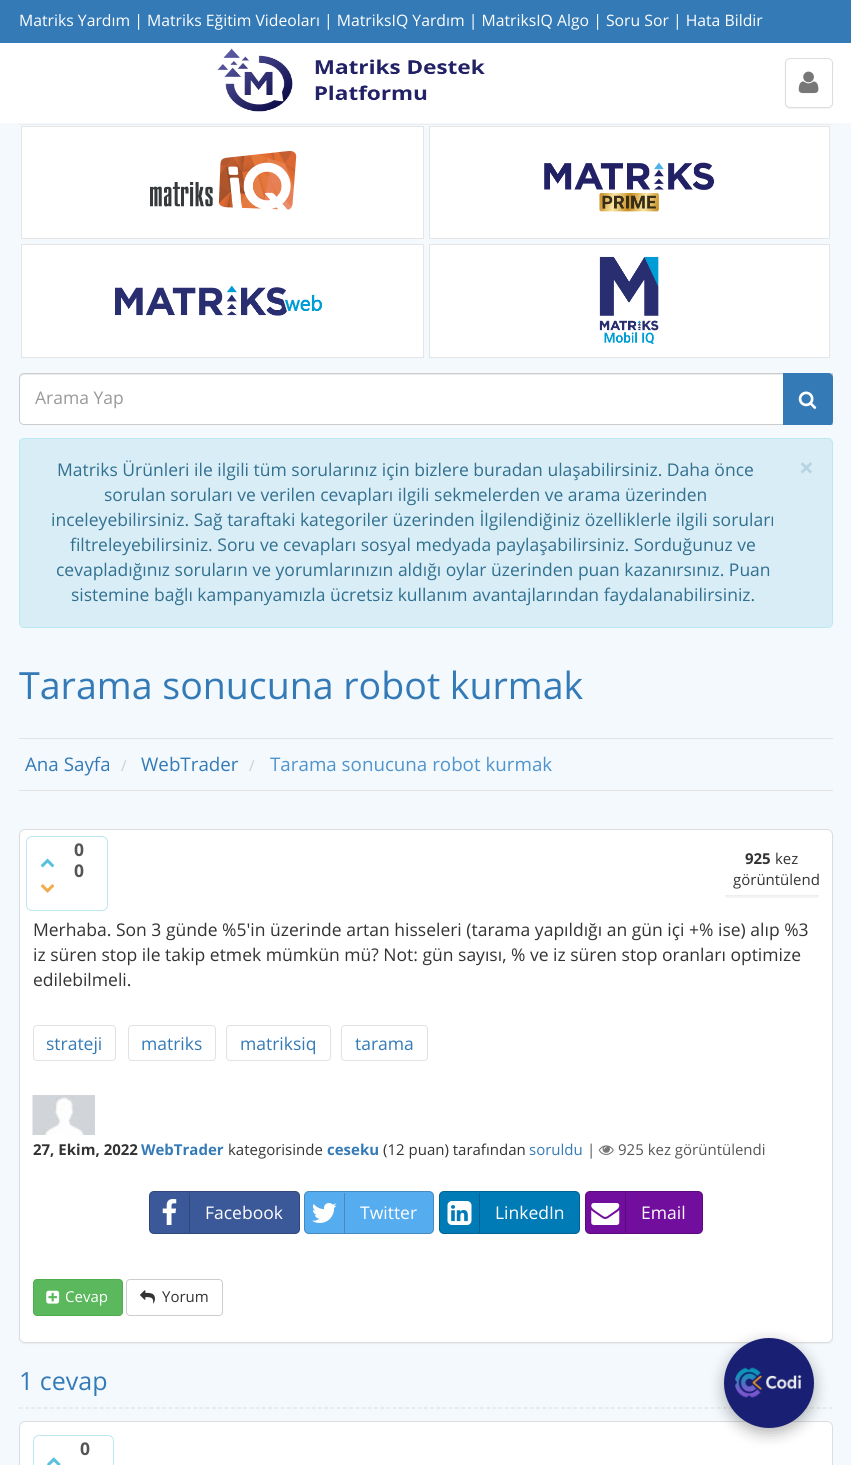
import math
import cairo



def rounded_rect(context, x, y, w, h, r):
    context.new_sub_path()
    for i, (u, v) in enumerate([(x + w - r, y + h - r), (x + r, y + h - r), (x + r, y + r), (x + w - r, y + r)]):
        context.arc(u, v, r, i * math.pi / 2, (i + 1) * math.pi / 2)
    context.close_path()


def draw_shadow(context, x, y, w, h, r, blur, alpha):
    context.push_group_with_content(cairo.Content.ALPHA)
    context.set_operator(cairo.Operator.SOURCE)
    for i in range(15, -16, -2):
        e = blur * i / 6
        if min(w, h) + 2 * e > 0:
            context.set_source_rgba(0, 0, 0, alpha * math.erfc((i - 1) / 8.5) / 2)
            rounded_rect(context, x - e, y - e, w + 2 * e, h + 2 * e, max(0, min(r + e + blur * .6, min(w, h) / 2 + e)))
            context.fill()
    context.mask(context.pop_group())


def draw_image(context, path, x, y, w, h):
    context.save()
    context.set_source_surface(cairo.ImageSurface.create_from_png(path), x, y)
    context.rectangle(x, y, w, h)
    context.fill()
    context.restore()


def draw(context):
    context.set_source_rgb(243 / 255, 249 / 255, 253 / 255)
    context.paint()
    context.set_source_rgb(51 / 255, 122 / 255, 183 / 255)
    context.rectangle(0, 0, 851, 43)
    context.fill()
    context.set_source_rgb(1, 1, 1)
    context.rectangle(0, 43, 851, 80)
    context.fill()
    draw_image(context, "images/1.png", 217, 48, 268, 64)
    context.set_source_rgb(0, 0, 0)
    draw_shadow(context, 785, 59, 48, 50, 5, 0.5, 0.05)
    context.set_source_rgb(1, 1, 1)
    rounded_rect(context, 785.5, 58.5, 47, 49, 4.5)
    context.fill_preserve()
    context.set_source_rgb(221 / 255, 221 / 255, 221 / 255)
    context.set_line_width(1)
    context.stroke()
    draw_image(context, "images/2.png", 798, 71, 21, 23)
    context.set_source_rgb(238 / 255, 238 / 255, 238 / 255)
    context.rectangle(19, 124, 814, 1)
    context.fill()
    context.set_source_rgb(1, 1, 1)
    context.rectangle(21.5, 126.5, 402, 112)
    context.fill_preserve()
    context.set_source_rgb(229 / 255, 229 / 255, 229 / 255)
    context.stroke()
    draw_image(context, "images/3.png", 150, 151, 147, 59)
    context.set_source_rgb(1, 1, 1)
    context.rectangle(429.5, 126.5, 400, 112)
    context.fill_preserve()
    context.set_source_rgb(229 / 255, 229 / 255, 229 / 255)
    context.stroke()
    draw_image(context, "images/4.png", 544, 162, 171, 50)
    context.set_source_rgb(1, 1, 1)
    context.rectangle(21.5, 244.5, 402, 113)
    context.fill_preserve()
    context.set_source_rgb(229 / 255, 229 / 255, 229 / 255)
    context.stroke()
    draw_image(context, "images/5.png", 115, 285, 207, 31)
    context.set_source_rgb(1, 1, 1)
    context.rectangle(429.5, 244.5, 400, 113)
    context.fill_preserve()
    context.set_source_rgb(229 / 255, 229 / 255, 229 / 255)
    context.stroke()
    draw_image(context, "images/6.png", 599, 256, 60, 89)
    context.set_source_rgb(1, 1, 1)
    context.new_path()
    context.move_to(24, 373)
    context.line_to(833, 373)
    context.line_to(833, 425)
    context.line_to(24, 425)
    context.curve_to(21, 425, 19, 423, 19, 420)
    context.line_to(19, 378)
    context.curve_to(19, 375, 21, 373, 24, 373)
    context.close_path()
    context.fill()
    context.set_source_rgb(236 / 255, 236 / 255, 236 / 255)
    context.new_path()
    context.move_to(24, 375)
    context.line_to(831, 375)
    context.line_to(831, 374)
    context.line_to(24, 374)
    context.curve_to(21, 374, 20, 376, 20, 379)
    context.curve_to(20, 377, 22, 375, 24, 375)
    context.close_path()
    context.fill()
    context.new_path()
    context.move_to(24, 373.5)
    context.line_to(832.5, 373.5)
    context.line_to(832.5, 424.5)
    context.line_to(24, 424.5)
    context.curve_to(21.5, 424.5, 19.5, 422.5, 19.5, 420)
    context.line_to(19.5, 378)
    context.curve_to(19.5, 375.5, 21.5, 373.5, 24, 373.5)
    context.close_path()
    context.set_source_rgb(204 / 255, 204 / 255, 204 / 255)
    context.stroke()
    context.save()
    context.rectangle(19, 373, 814, 52)
    context.clip()
    context.set_source_rgb(51 / 255, 122 / 255, 183 / 255)
    context.new_path()
    context.move_to(783, 373)
    context.line_to(828, 373)
    context.curve_to(831, 373, 833, 375, 833, 378)
    context.line_to(833, 421)
    context.curve_to(833, 424, 831, 426, 828, 426)
    context.line_to(783, 426)
    context.close_path()
    context.fill()
    context.restore()
    draw_image(context, "images/7.png", 798, 391, 19, 18)
    context.set_source_rgb(217 / 255, 237 / 255, 247 / 255)
    rounded_rect(context, 19.5, 438.5, 813, 189, 4.5)
    context.fill_preserve()
    context.set_source_rgb(188 / 255, 232 / 255, 241 / 255)
    context.stroke()
    context.set_source_rgb(226 / 255, 226 / 255, 226 / 255)
    context.rectangle(19, 738, 814, 1)
    context.fill()
    context.rectangle(19, 790, 814, 1)
    context.fill()
    context.set_source_rgb(0, 0, 0)
    draw_shadow(context, 19, 830, 814, 514, 6, 0.5, 0.05)
    context.set_source_rgb(1, 1, 1)
    rounded_rect(context, 19.5, 829.5, 813, 513, 5.5)
    context.fill_preserve()
    context.set_source_rgb(221 / 255, 221 / 255, 221 / 255)
    context.stroke()
    rounded_rect(context, 26.5, 836.5, 81, 74, 5.5)
    context.set_source_rgb(188 / 255, 232 / 255, 241 / 255)
    context.stroke()
    draw_image(context, "images/8.png", 40, 858, 15, 10)
    draw_image(context, "images/9.png", 40, 884, 15, 9)
    context.save()
    context.rectangle(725, 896, 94, 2)
    context.clip()
    context.set_source_rgb(0, 0, 0)
    draw_shadow(context, 725, 844, 94, 54, 0, 0.5, 0.05)
    context.restore()
    context.set_source_rgb(238 / 255, 238 / 255, 238 / 255)
    context.rectangle(725, 895, 94, 1)
    context.fill()
    rounded_rect(context, 33.5, 1025.5, 82, 35, 3.5)
    context.set_source_rgb(226 / 255, 226 / 255, 226 / 255)
    context.stroke()
    rounded_rect(context, 128.5, 1025.5, 87, 35, 3.5)
    context.stroke()
    rounded_rect(context, 226.5, 1025.5, 104, 35, 3.5)
    context.stroke()
    rounded_rect(context, 341.5, 1025.5, 86, 35, 3.5)
    context.stroke()
    draw_image(context, "images/10.png", 32, 1095, 63, 40)
    draw_image(context, "images/11.png", 598, 1145, 16, 10)
    context.set_source_rgb(59 / 255, 89 / 255, 152 / 255)
    rounded_rect(context, 149, 1191, 151, 43, 5)
    context.fill()
    rounded_rect(context, 149.5, 1191.5, 150, 42, 4.5)
    context.set_source_rgba(0, 0, 0, 0.2)
    context.stroke()
    context.set_source_rgb(47 / 255, 71 / 255, 122 / 255)
    context.rectangle(189, 1193, 1, 40)
    context.fill()
    draw_image(context, "images/12.png", 162, 1199, 15, 26)
    context.set_source_rgb(85 / 255, 172 / 255, 238 / 255)
    rounded_rect(context, 304, 1191, 130, 43, 5)
    context.fill()
    rounded_rect(context, 304.5, 1191.5, 129, 42, 4.5)
    context.set_source_rgba(0, 0, 0, 0.2)
    context.stroke()
    context.set_source_rgb(68 / 255, 138 / 255, 190 / 255)
    context.rectangle(344, 1193, 1, 40)
    context.fill()
    draw_image(context, "images/13.png", 312, 1203, 25, 20)
    context.set_source_rgb(0, 123 / 255, 182 / 255)
    rounded_rect(context, 439, 1191, 141, 43, 5)
    context.fill()
    rounded_rect(context, 439.5, 1191.5, 140, 42, 4.5)
    context.set_source_rgba(0, 0, 0, 0.2)
    context.stroke()
    context.set_source_rgb(0, 98 / 255, 146 / 255)
    context.rectangle(479, 1193, 1, 40)
    context.fill()
    draw_image(context, "images/14.png", 447, 1201, 25, 24)
    context.set_source_rgb(114 / 255, 14 / 255, 158 / 255)
    rounded_rect(context, 585, 1191, 118, 43, 5)
    context.fill()
    rounded_rect(context, 585.5, 1191.5, 117, 42, 4.5)
    context.set_source_rgba(0, 0, 0, 0.2)
    context.stroke()
    context.set_source_rgb(91 / 255, 11 / 255, 126 / 255)
    context.rectangle(625, 1193, 1, 40)
    context.fill()
    draw_image(context, "images/15.png", 591, 1203, 29, 22)
    context.set_source_rgb(92 / 255, 184 / 255, 92 / 255)
    rounded_rect(context, 33.5, 1279.5, 89, 36, 3.5)
    context.fill_preserve()
    context.set_source_rgb(76 / 255, 174 / 255, 76 / 255)
    context.stroke()
    draw_image(context, "images/16.png", 46, 1290, 14, 14)
    rounded_rect(context, 126.5, 1279.5, 96, 36, 3.5)
    context.set_source_rgb(204 / 255, 204 / 255, 204 / 255)
    context.stroke()
    draw_image(context, "images/17.png", 140, 1290, 15, 14)
    context.new_path()
    context.move_to(19, 1408)
    context.line_to(832.5, 1408)
    context.set_source_rgb(226 / 255, 226 / 255, 226 / 255)
    context.set_line_width(1.2)
    context.set_dash([3.75, 2.48])
    context.stroke()
    context.set_source_rgb(1, 1, 1)
    rounded_rect(context, 19.5, 1421.5, 813, 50, 5.5)
    context.fill_preserve()
    context.set_source_rgb(221 / 255, 221 / 255, 221 / 255)
    context.set_line_width(1)
    context.set_dash([])
    context.stroke()
    rounded_rect(context, 33.5, 1435.5, 80, 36, 5.5)
    context.set_source_rgb(188 / 255, 232 / 255, 241 / 255)
    context.stroke()
    draw_image(context, "images/18.png", 47, 1457, 14, 8)
    context.set_source_rgb(0, 0, 0)
    draw_shadow(context, 724, 1343, 90, 90, 45, 7.5, 0.3)
    context.set_source_rgb(25 / 255, 31 / 255, 114 / 255)
    context.arc(769, 1383, 45, 0, 2 * math.pi)
    context.fill()
    draw_image(context, "images/19.png", 735, 1367, 67, 31)
    context.select_font_face("Open Sans")
    context.set_font_size(15.75)
    context.set_source_rgb(1, 1, 1)
    context.move_to(19, 26)
    context.show_text("Matriks Yardım | Matriks Eğitim Videoları | MatriksIQ Yardım | MatriksIQ Algo | Soru Sor | Hata Bildir")
    context.set_font_size(17.5)
    context.set_source_rgb(153 / 255, 153 / 255, 153 / 255)
    context.move_to(35, 404)
    context.show_text("Arama Yap")
    context.set_source_rgb(49 / 255, 112 / 255, 143 / 255)
    context.move_to(57, 476)
    context.show_text("Matriks Ürünleri ile ilgili tüm sorularınız için bizlere buradan ulaşabilirsiniz. Daha önce")
    context.select_font_face("Open Sans", cairo.FontSlant.NORMAL, cairo.FontWeight.BOLD)
    context.set_font_size(26)
    context.set_source_rgb(183 / 255, 212 / 255, 226 / 255)
    context.move_to(799, 477)
    context.show_text("×")
    context.select_font_face("Open Sans")
    context.set_font_size(17.5)
    context.set_source_rgb(49 / 255, 112 / 255, 143 / 255)
    context.move_to(104, 501)
    context.show_text("sorulan soruları ve verilen cevapları ilgili sekmelerden ve arama üzerinden")
    context.move_to(51, 526)
    context.show_text("inceleyebilirsiniz. Sağ taraftaki kategoriler üzerinden İlgilendiğiniz özelliklerle ilgili soruları")
    context.move_to(70, 551)
    context.show_text("filtreleyebilirsiniz. Soru ve cevapları sosyal medyada paylaşabilirsiniz. Sorduğunuz ve")
    context.move_to(56, 576)
    context.show_text("cevapladığınız soruların ve yorumlarınızın aldığı oylar üzerinden puan kazanırsınız. Puan")
    context.move_to(71, 601)
    context.show_text("sistemine bağlı kampanyamızla ücretsiz kullanım avantajlarından faydalanabilirsiniz.")
    context.set_font_size(37.5)
    context.set_source_rgb(51 / 255, 122 / 255, 183 / 255)
    context.move_to(19, 699)
    context.show_text("Tarama sonucuna robot kurmak")
    context.set_font_size(18.75)
    context.move_to(25, 771)
    context.show_text("Ana Sayfa")
    context.set_font_size(15)
    context.set_source_rgb(204 / 255, 204 / 255, 204 / 255)
    context.move_to(121, 771)
    context.show_text("/")
    context.set_font_size(18.75)
    context.set_source_rgb(51 / 255, 122 / 255, 183 / 255)
    context.move_to(141, 771)
    context.show_text("WebTrader")
    context.set_font_size(15)
    context.set_source_rgb(204 / 255, 204 / 255, 204 / 255)
    context.move_to(249, 771)
    context.show_text("/")
    context.set_font_size(18.75)
    context.set_source_rgb(80 / 255, 148 / 255, 206 / 255)
    context.move_to(270, 771)
    context.show_text("Tarama sonucuna robot kurmak")
    context.select_font_face("Open Sans", cairo.FontSlant.NORMAL, cairo.FontWeight.BOLD)
    context.set_font_size(17.5)
    context.set_source_rgb(85 / 255, 85 / 255, 85 / 255)
    context.move_to(74, 856)
    context.show_text("0")
    context.move_to(74, 877)
    context.show_text("0")
    context.set_font_size(15)
    context.set_source_rgb(51 / 255, 51 / 255, 51 / 255)
    context.move_to(745, 864)
    context.show_text("925")
    context.select_font_face("Open Sans")
    context.move_to(775, 864)
    context.show_text("kez")
    context.move_to(733, 885)
    context.show_text("görüntülend")
    context.set_font_size(17.5)
    context.move_to(33, 936)
    context.show_text("Merhaba. Son 3 günde %5'in üzerinde artan hisseleri (tarama yapıldığı an gün içi +% ise) alıp %3")
    context.move_to(33, 961)
    context.show_text("iz süren stop ile takip etmek mümkün mü? Not: gün sayısı, % ve iz süren stop oranları optimize")
    context.move_to(33, 986)
    context.show_text("edilebilmeli.")
    context.set_source_rgb(51 / 255, 122 / 255, 183 / 255)
    context.move_to(46, 1050)
    context.show_text("strateji")
    context.move_to(141, 1050)
    context.show_text("matriks")
    context.move_to(240, 1050)
    context.show_text("matriksiq")
    context.move_to(355, 1050)
    context.show_text("tarama")
    context.select_font_face("Open Sans", cairo.FontSlant.NORMAL, cairo.FontWeight.BOLD)
    context.set_font_size(15)
    context.set_source_rgb(51 / 255, 51 / 255, 51 / 255)
    context.move_to(33, 1155)
    context.show_text("27, Ekim, 2022")
    context.set_source_rgb(51 / 255, 122 / 255, 183 / 255)
    context.move_to(141, 1155)
    context.show_text("WebTrader")
    context.select_font_face("Open Sans")
    context.set_source_rgb(51 / 255, 51 / 255, 51 / 255)
    context.move_to(228, 1155)
    context.show_text("kategorisinde")
    context.select_font_face("Open Sans", cairo.FontSlant.NORMAL, cairo.FontWeight.BOLD)
    context.set_source_rgb(51 / 255, 122 / 255, 183 / 255)
    context.move_to(327, 1155)
    context.show_text("ceseku")
    context.select_font_face("Open Sans")
    context.set_source_rgb(51 / 255, 51 / 255, 51 / 255)
    context.move_to(383, 1155)
    context.show_text("(12 puan) tarafından")
    context.set_source_rgb(51 / 255, 122 / 255, 183 / 255)
    context.move_to(529, 1155)
    context.show_text("soruldu")
    context.set_source_rgb(85 / 255, 85 / 255, 85 / 255)
    context.move_to(587, 1155)
    context.show_text("|")
    context.move_to(618, 1155)
    context.show_text("925 kez görüntülendi")
    context.set_font_size(17.5)
    context.set_source_rgb(1, 1, 1)
    context.move_to(205, 1219)
    context.show_text("Facebook")
    context.move_to(360, 1219)
    context.show_text("Twitter")
    context.move_to(495, 1219)
    context.show_text("LinkedIn")
    context.move_to(641, 1219)
    context.show_text("Email")
    context.set_font_size(15)
    context.move_to(65, 1302)
    context.show_text("Cevap")
    context.set_source_rgb(51 / 255, 51 / 255, 51 / 255)
    context.move_to(162, 1302)
    context.show_text("Yorum")
    context.set_font_size(25)
    context.set_source_rgb(51 / 255, 122 / 255, 183 / 255)
    context.move_to(19, 1390)
    context.show_text("1 cevap")
    context.select_font_face("Open Sans", cairo.FontSlant.NORMAL, cairo.FontWeight.BOLD)
    context.set_font_size(17.5)
    context.set_source_rgb(85 / 255, 85 / 255, 85 / 255)
    context.move_to(80, 1455)
    context.show_text("0")


surface = cairo.ImageSurface(cairo.Format.RGB24, 851, 1465)
context = cairo.Context(surface)
options = cairo.FontOptions()
options.set_hint_metrics(cairo.HintMetrics.OFF)
options.set_hint_style(cairo.HintStyle.NONE)
context.set_font_options(options)
context.set_miter_limit(4)
draw(context)
surface.write_to_png("out.png")
